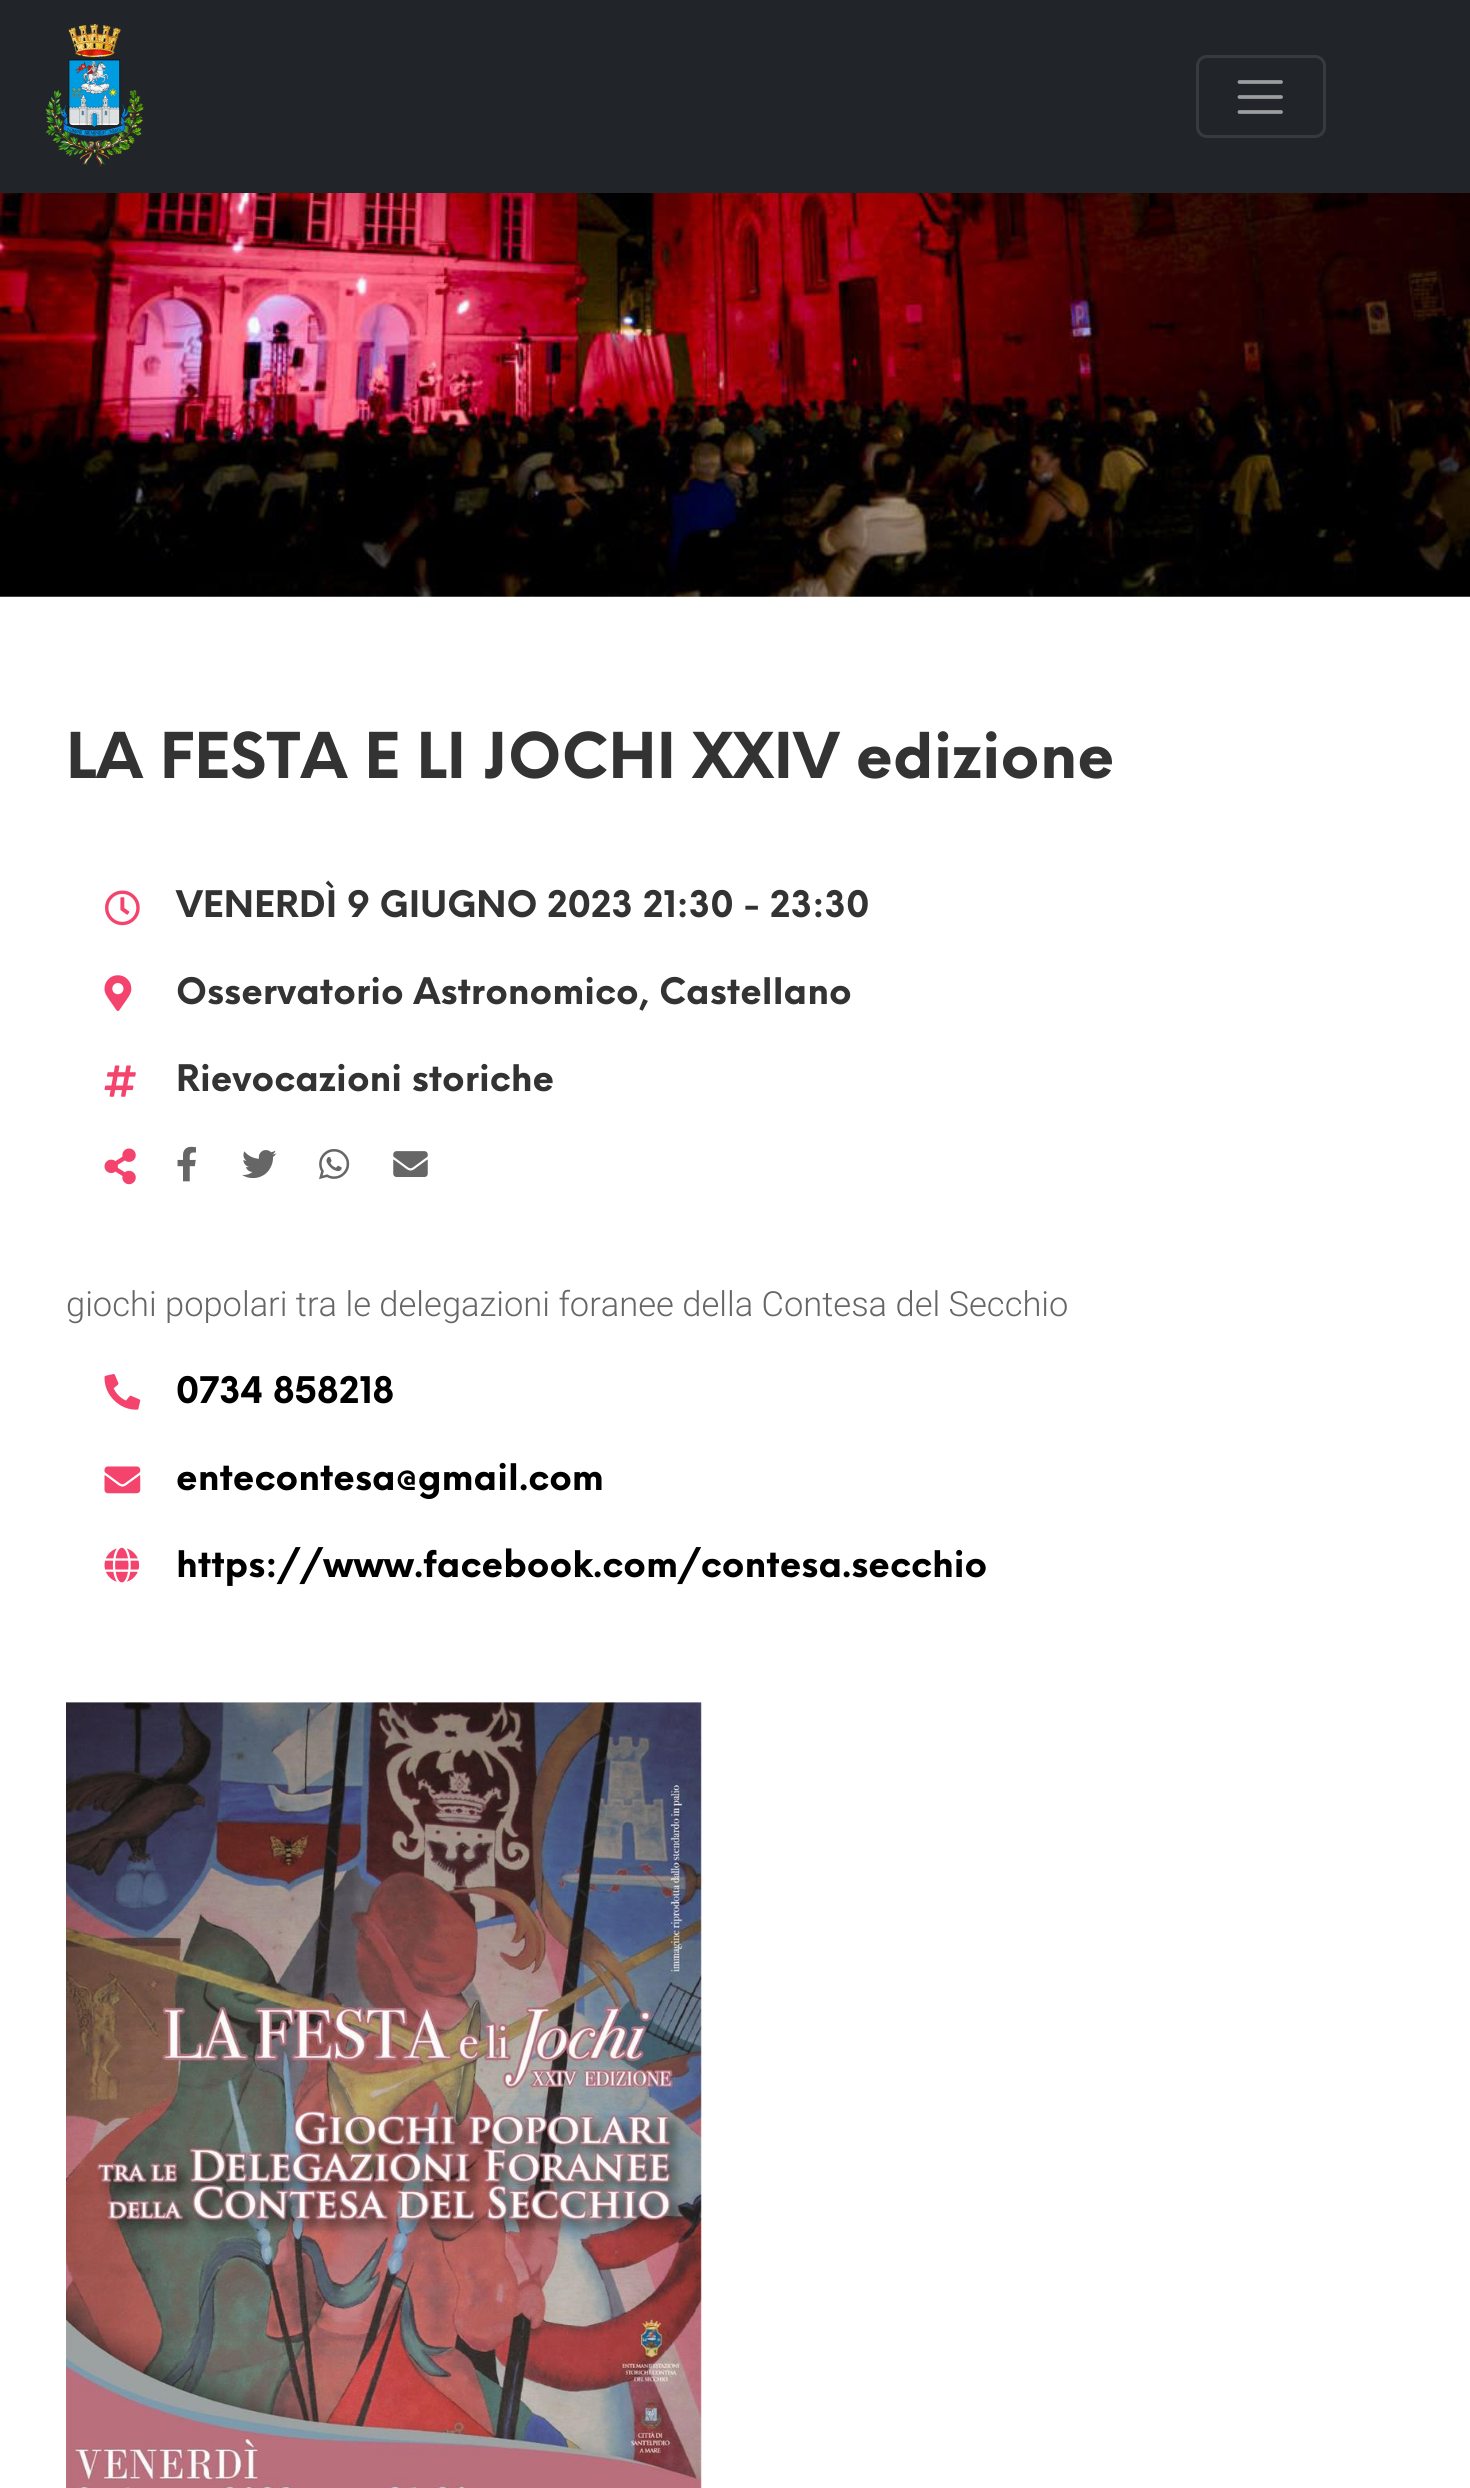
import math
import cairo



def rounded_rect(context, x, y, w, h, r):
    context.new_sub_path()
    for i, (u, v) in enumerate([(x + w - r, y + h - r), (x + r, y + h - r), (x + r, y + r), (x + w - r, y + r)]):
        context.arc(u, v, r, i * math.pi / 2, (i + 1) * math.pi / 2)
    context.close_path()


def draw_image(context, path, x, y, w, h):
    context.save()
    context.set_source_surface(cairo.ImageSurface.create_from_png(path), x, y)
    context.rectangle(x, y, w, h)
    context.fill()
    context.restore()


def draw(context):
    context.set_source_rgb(1, 1, 1)
    context.paint()
    context.set_source_rgb(33 / 255, 37 / 255, 41 / 255)
    context.rectangle(0, 0, 1470, 193)
    context.fill()
    draw_image(context, "images/1.png", 45, 24, 99, 143)
    rounded_rect(context, 1197.5, 56.5, 127, 80, 9.5)
    context.set_source_rgb(55 / 255, 59 / 255, 62 / 255)
    context.set_line_width(3)
    context.stroke()
    context.new_path()
    context.move_to(1239.5, 82)
    context.line_to(1281, 82)
    context.move_to(1239.5, 97)
    context.line_to(1281, 97)
    context.move_to(1239.5, 112)
    context.line_to(1281, 112)
    context.set_source_rgb(155 / 255, 157 / 255, 159 / 255)
    context.set_line_width(3.8)
    context.set_line_cap(cairo.LineCap.ROUND)
    context.stroke()
    draw_image(context, "images/2.png", 0, 193, 1470, 404)
    draw_image(context, "images/3.png", 105, 890, 35, 36)
    draw_image(context, "images/4.png", 104, 975, 28, 36)
    draw_image(context, "images/5.png", 104, 1065, 32, 32)
    draw_image(context, "images/6.png", 104, 1148, 32, 37)
    draw_image(context, "images/7.png", 177, 1146, 19, 36)
    draw_image(context, "images/8.png", 242, 1150, 35, 29)
    draw_image(context, "images/9.png", 319, 1149, 31, 31)
    draw_image(context, "images/10.png", 393, 1151, 35, 26)
    draw_image(context, "images/11.png", 104, 1374, 37, 36)
    draw_image(context, "images/12.png", 104, 1466, 37, 28)
    draw_image(context, "images/13.png", 104, 1547, 36, 36)
    draw_image(context, "images/14.png", 66, 1702, 636, 786)
    context.select_font_face("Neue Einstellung", cairo.FontSlant.NORMAL, cairo.FontWeight.BOLD)
    context.set_font_size(61.6)
    context.set_source_rgb(51 / 255, 51 / 255, 51 / 255)
    context.move_to(66, 778)
    context.show_text("LA FESTA E LI JOCHI XXIV edizione")
    context.set_font_size(35.75)
    context.move_to(176, 917)
    context.show_text("VENERDÌ 9 GIUGNO 2023 21:30 - 23:30")
    context.move_to(176, 1004)
    context.show_text("Osservatorio Astronomico, Castellano")
    context.move_to(176, 1091)
    context.show_text("Rievocazioni storiche")
    context.select_font_face("Roboto Light")
    context.set_font_size(34.5)
    context.set_source_rgb(102 / 255, 102 / 255, 102 / 255)
    context.move_to(66, 1316)
    context.show_text("giochi popolari tra le delegazioni foranee della Contesa del Secchio")
    context.select_font_face("Neue Einstellung", cairo.FontSlant.NORMAL, cairo.FontWeight.BOLD)
    context.set_font_size(35.75)
    context.set_source_rgb(0, 0, 0)
    context.move_to(176, 1403)
    context.show_text("0734 858218")
    context.move_to(176, 1490)
    context.show_text("entecontesa@gmail.com")
    context.move_to(176, 1577)
    context.show_text("https://www.facebook.com/contesa.secchio")


surface = cairo.ImageSurface(cairo.Format.RGB24, 1470, 2488)
context = cairo.Context(surface)
options = cairo.FontOptions()
options.set_hint_metrics(cairo.HintMetrics.OFF)
options.set_hint_style(cairo.HintStyle.NONE)
context.set_font_options(options)
context.set_miter_limit(4)
draw(context)
surface.write_to_png("out.png")
